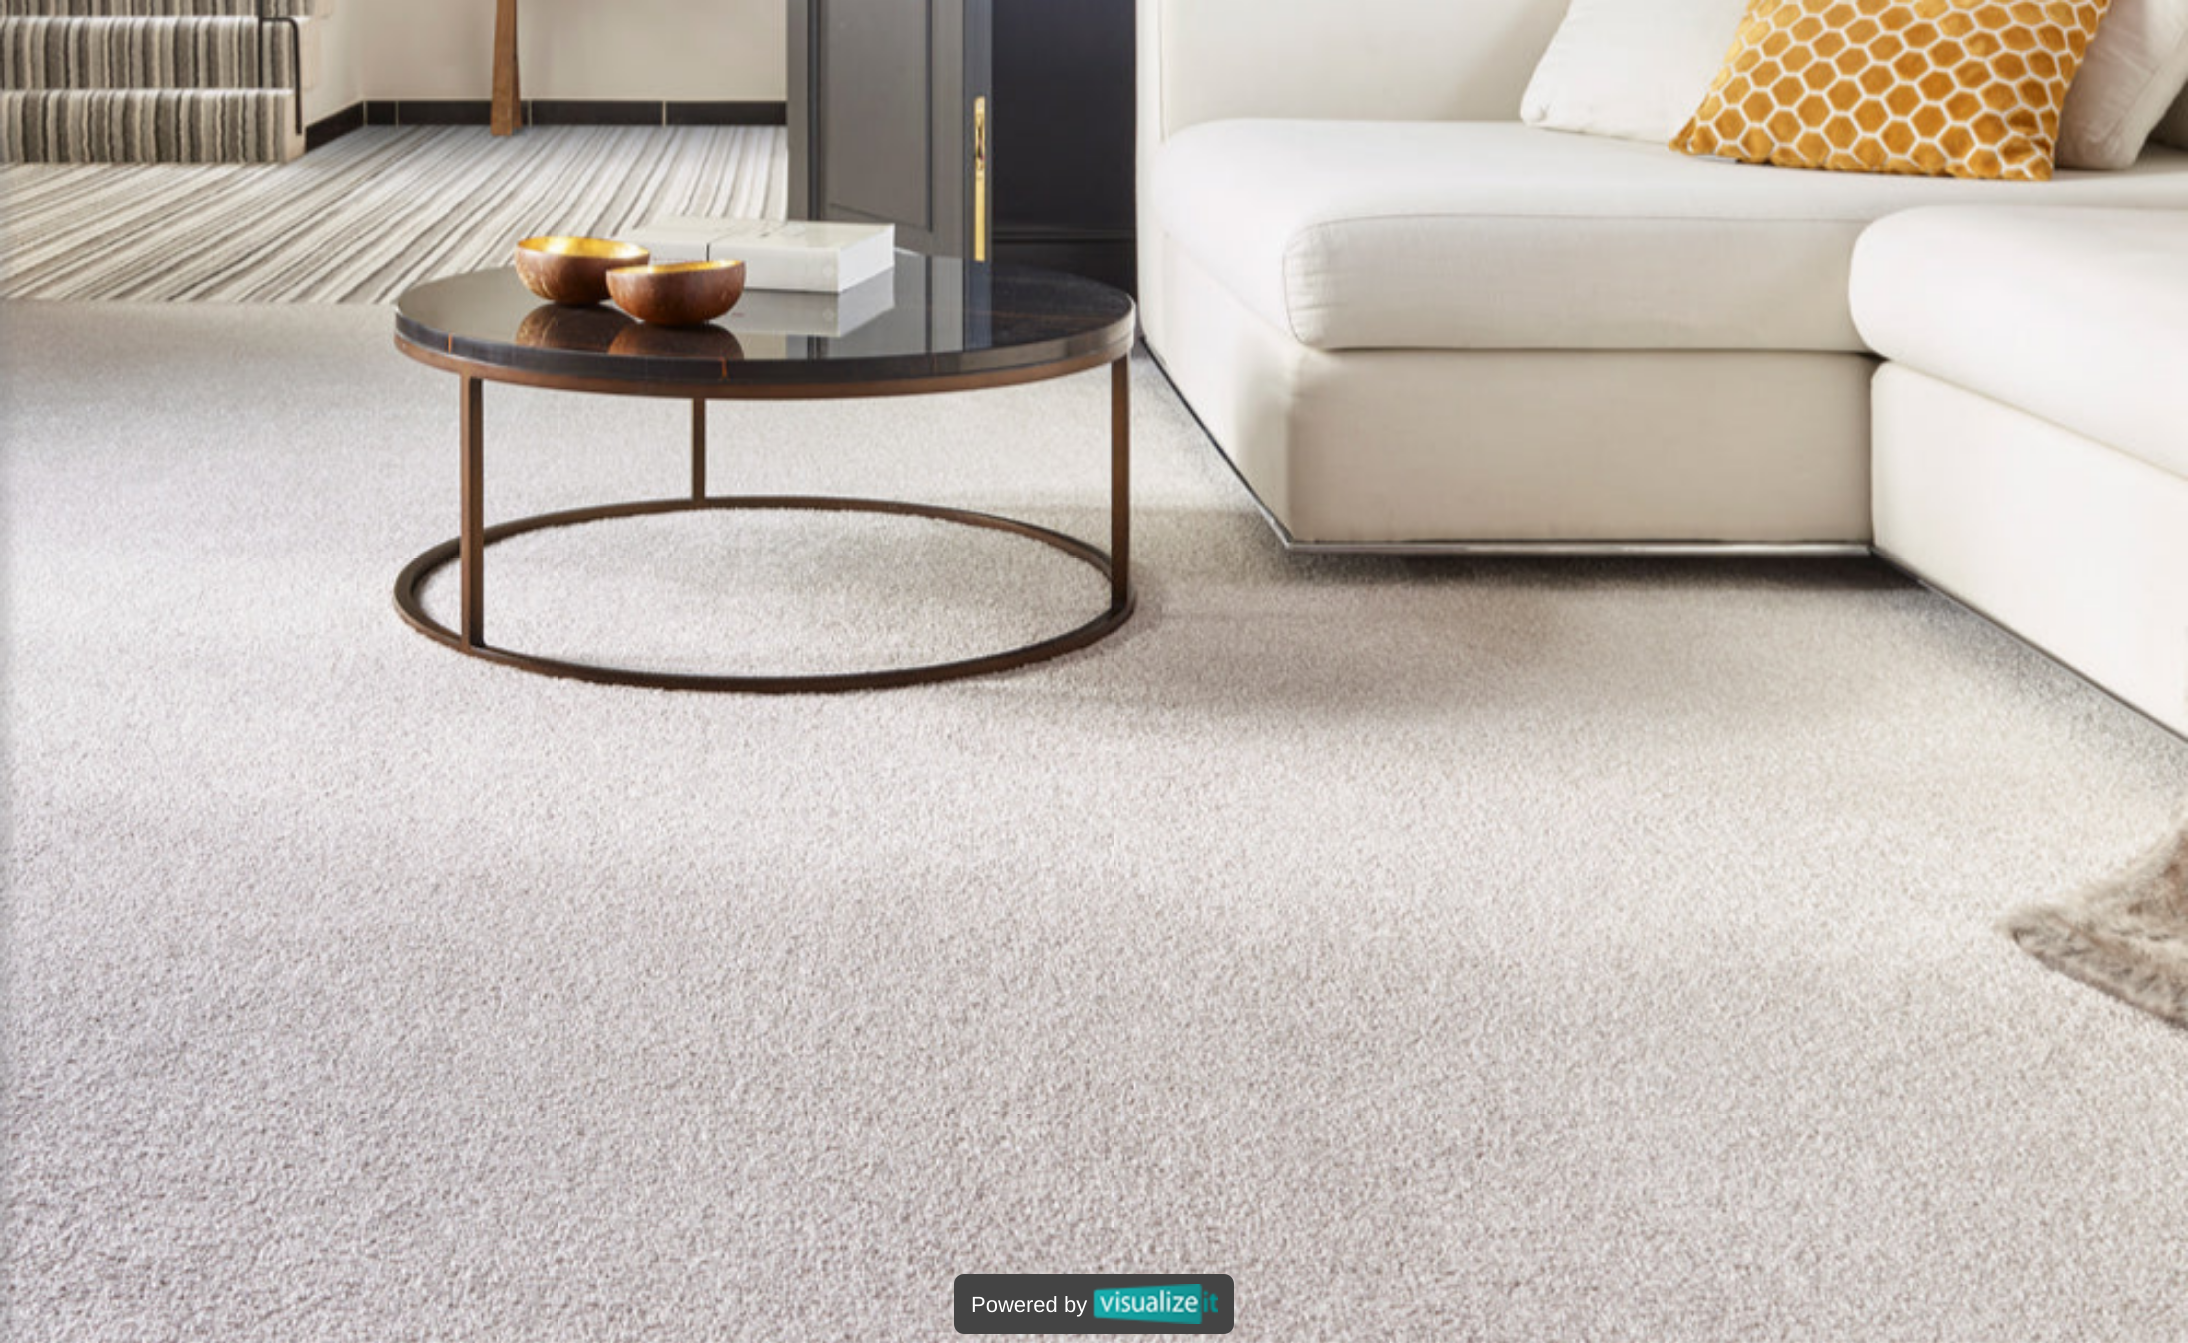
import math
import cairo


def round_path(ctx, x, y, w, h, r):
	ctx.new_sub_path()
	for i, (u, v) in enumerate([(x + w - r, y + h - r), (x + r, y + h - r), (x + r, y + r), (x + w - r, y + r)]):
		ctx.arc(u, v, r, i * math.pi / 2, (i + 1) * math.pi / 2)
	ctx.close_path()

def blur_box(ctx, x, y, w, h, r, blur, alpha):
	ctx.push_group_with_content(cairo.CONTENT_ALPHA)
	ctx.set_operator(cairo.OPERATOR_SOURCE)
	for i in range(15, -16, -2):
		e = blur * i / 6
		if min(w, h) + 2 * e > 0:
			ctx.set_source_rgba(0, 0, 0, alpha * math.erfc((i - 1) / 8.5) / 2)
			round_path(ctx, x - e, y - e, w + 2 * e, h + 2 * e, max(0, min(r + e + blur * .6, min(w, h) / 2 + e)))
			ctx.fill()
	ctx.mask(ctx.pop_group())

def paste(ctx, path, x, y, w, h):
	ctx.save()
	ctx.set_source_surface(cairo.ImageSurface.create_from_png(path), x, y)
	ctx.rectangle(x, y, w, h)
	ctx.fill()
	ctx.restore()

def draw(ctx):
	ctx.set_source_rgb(1, 1, 1)
	ctx.paint()
	paste(ctx, 'media/1.png', 0, 0, 2188, 1343)
	ctx.set_source_rgb(0.51, 0.51, 0.51)
	blur_box(ctx, -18, 116, 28, 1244, 0, 6, 0.3)
	ctx.set_source_rgb(0.267, 0.267, 0.267)
	round_path(ctx, 955, 1275, 278, 58, 9)
	ctx.fill_preserve()
	ctx.stroke()
	ctx.select_font_face('Liberation Sans')
	ctx.set_font_size(22)
	ctx.set_source_rgb(1, 1, 1)
	ctx.move_to(971, 1312)
	ctx.show_text('Powered by')
	paste(ctx, 'media/2.png', 1093, 1284, 125, 40)


surface = cairo.ImageSurface(cairo.FORMAT_RGB24, 2188, 1343)
ctx = cairo.Context(surface)
options = cairo.FontOptions()
options.set_hint_metrics(cairo.HINT_METRICS_OFF)
options.set_hint_style(cairo.HINT_STYLE_NONE)
ctx.set_font_options(options)
ctx.set_miter_limit(4)
draw(ctx)
surface.write_to_png('image.png')
